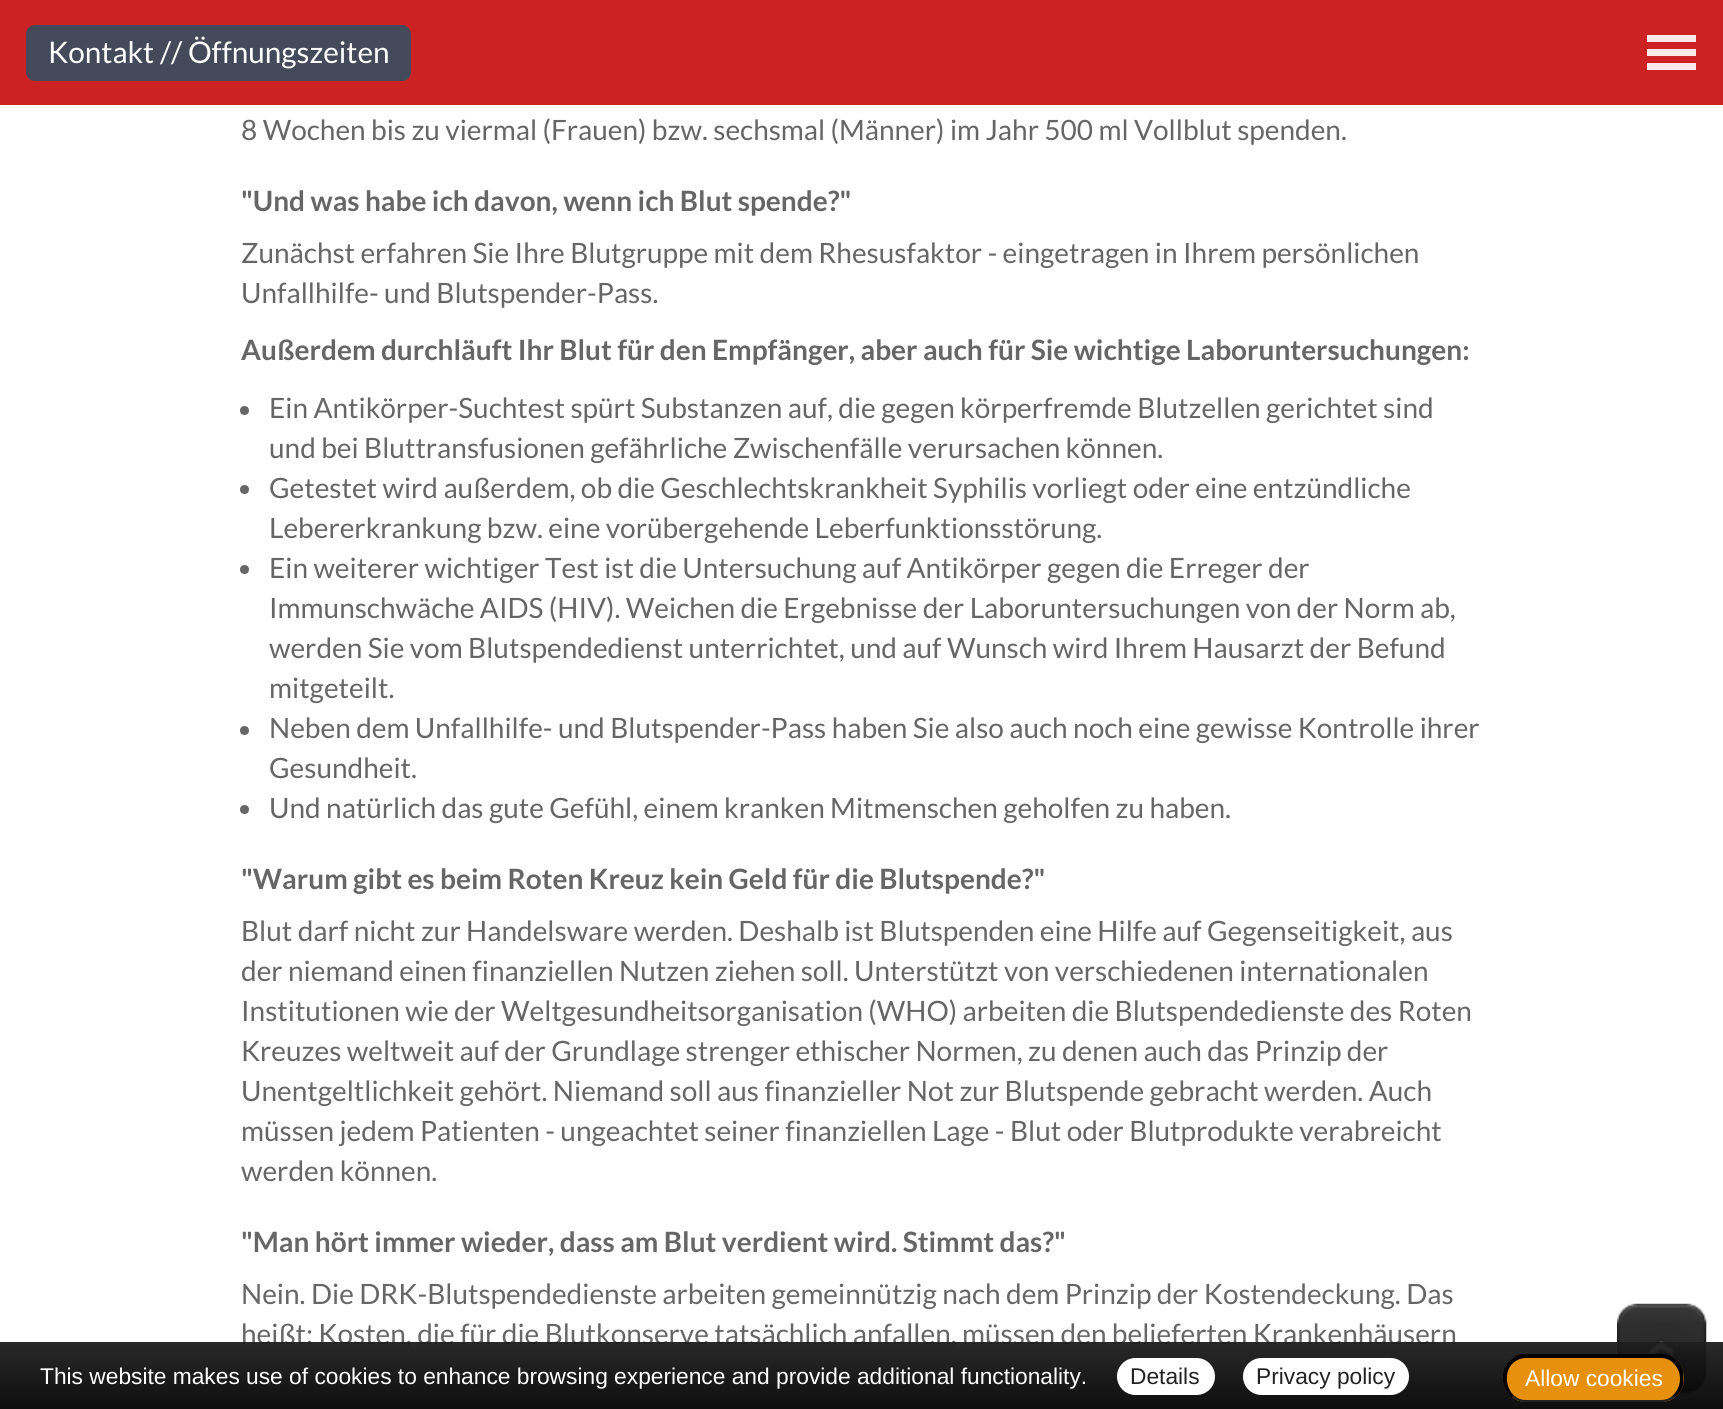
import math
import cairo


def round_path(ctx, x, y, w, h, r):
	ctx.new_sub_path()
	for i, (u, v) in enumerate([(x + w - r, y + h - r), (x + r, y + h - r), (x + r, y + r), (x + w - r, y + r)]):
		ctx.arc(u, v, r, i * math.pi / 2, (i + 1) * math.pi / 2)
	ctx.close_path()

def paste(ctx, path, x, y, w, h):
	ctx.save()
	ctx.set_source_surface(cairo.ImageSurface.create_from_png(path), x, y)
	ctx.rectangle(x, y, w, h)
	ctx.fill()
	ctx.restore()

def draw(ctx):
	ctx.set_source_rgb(1, 1, 1)
	ctx.paint()
	ctx.set_source_rgb(0.8, 0.133, 0.141)
	ctx.rectangle(0, 0, 1723, 105)
	ctx.fill()
	ctx.set_source_rgb(0.98, 0.914, 0.914)
	ctx.rectangle(1647, 35, 49, 7)
	ctx.rectangle(1647, 49, 49, 7)
	ctx.rectangle(1647, 63, 49, 7)
	ctx.fill()
	ctx.set_source_rgb(0.267, 0.29, 0.353)
	round_path(ctx, 26, 25, 385, 56, 9)
	ctx.fill()
	ctx.select_font_face('Lato')
	ctx.set_font_size(29.75)
	ctx.set_source_rgb(1, 1, 1)
	ctx.move_to(48, 63)
	ctx.show_text('Kontakt // Öffnungszeiten')
	ctx.set_font_size(28)
	ctx.set_source_rgb(0.4, 0.4, 0.4)
	ctx.move_to(241, 140)
	ctx.show_text('8 Wochen bis zu viermal (Frauen) bzw. sechsmal (Männer) im Jahr 500 ml Vollblut spenden.')
	ctx.select_font_face('Lato', cairo.FONT_SLANT_NORMAL, cairo.FONT_WEIGHT_BOLD)
	ctx.move_to(241, 211)
	ctx.show_text('"Und was habe ich davon, wenn ich Blut spende?"')
	ctx.select_font_face('Lato')
	ctx.move_to(241, 263)
	ctx.show_text('Zunächst erfahren Sie Ihre Blutgruppe mit dem Rhesusfaktor - eingetragen in Ihrem persönlichen')
	ctx.move_to(241, 303)
	ctx.show_text('Unfallhilfe- und Blutspender-Pass.')
	ctx.select_font_face('Lato', cairo.FONT_SLANT_NORMAL, cairo.FONT_WEIGHT_BOLD)
	ctx.move_to(241, 360)
	ctx.show_text('Außerdem durchläuft Ihr Blut für den Empfänger, aber auch für Sie wichtige Laboruntersuchungen:')
	ctx.new_path()
	ctx.arc(244.5, 410.5, 4.5, 0, 2 * math.pi)
	ctx.fill()
	ctx.select_font_face('Lato')
	ctx.move_to(269, 418)
	ctx.show_text('Ein Antikörper-Suchtest spürt Substanzen auf, die gegen körperfremde Blutzellen gerichtet sind')
	ctx.move_to(269, 458)
	ctx.show_text('und bei Bluttransfusionen gefährliche Zwischenfälle verursachen können.')
	ctx.new_path()
	ctx.arc(244.5, 489.5, 4.5, 0, 2 * math.pi)
	ctx.fill()
	ctx.move_to(269, 498)
	ctx.show_text('Getestet wird außerdem, ob die Geschlechtskrankheit Syphilis vorliegt oder eine entzündliche')
	ctx.move_to(269, 538)
	ctx.show_text('Lebererkrankung bzw. eine vorübergehende Leberfunktionsstörung.')
	ctx.new_path()
	ctx.arc(244.5, 569.5, 4.5, 0, 2 * math.pi)
	ctx.fill()
	for x, y, s in [
		(269, 578, 'Ein weiterer wichtiger Test ist die Untersuchung auf Antikörper gegen die Erreger der'),
		(269, 618, 'Immunschwäche AIDS (HIV). Weichen die Ergebnisse der Laboruntersuchungen von der Norm ab,'),
		(269, 658, 'werden Sie vom Blutspendedienst unterrichtet, und auf Wunsch wird Ihrem Hausarzt der Befund'),
		(269, 698, 'mitgeteilt.'),
	]:
		ctx.move_to(x, y)
		ctx.show_text(s)
	ctx.new_path()
	ctx.arc(244.5, 730.5, 4.5, 0, 2 * math.pi)
	ctx.fill()
	ctx.move_to(269, 738)
	ctx.show_text('Neben dem Unfallhilfe- und Blutspender-Pass haben Sie also auch noch eine gewisse Kontrolle ihrer')
	ctx.move_to(269, 778)
	ctx.show_text('Gesundheit.')
	ctx.new_path()
	ctx.arc(244.5, 809.5, 4.5, 0, 2 * math.pi)
	ctx.fill()
	ctx.move_to(269, 818)
	ctx.show_text('Und natürlich das gute Gefühl, einem kranken Mitmenschen geholfen zu haben.')
	ctx.select_font_face('Lato', cairo.FONT_SLANT_NORMAL, cairo.FONT_WEIGHT_BOLD)
	ctx.move_to(241, 889)
	ctx.show_text('"Warum gibt es beim Roten Kreuz kein Geld für die Blutspende?"')
	ctx.select_font_face('Lato')
	for x, y, s in [
		(241, 941, 'Blut darf nicht zur Handelsware werden. Deshalb ist Blutspenden eine Hilfe auf Gegenseitigkeit, aus'),
		(241, 981, 'der niemand einen finanziellen Nutzen ziehen soll. Unterstützt von verschiedenen internationalen'),
		(241, 1021, 'Institutionen wie der Weltgesundheitsorganisation (WHO) arbeiten die Blutspendedienste des Roten'),
		(241, 1061, 'Kreuzes weltweit auf der Grundlage strenger ethischer Normen, zu denen auch das Prinzip der'),
		(241, 1101, 'Unentgeltlichkeit gehört. Niemand soll aus finanzieller Not zur Blutspende gebracht werden. Auch'),
		(241, 1141, 'müssen jedem Patienten - ungeachtet seiner finanziellen Lage - Blut oder Blutprodukte verabreicht'),
		(241, 1181, 'werden können.'),
	]:
		ctx.move_to(x, y)
		ctx.show_text(s)
	ctx.select_font_face('Lato', cairo.FONT_SLANT_NORMAL, cairo.FONT_WEIGHT_BOLD)
	ctx.move_to(241, 1252)
	ctx.show_text('"Man hört immer wieder, dass am Blut verdient wird. Stimmt das?"')
	ctx.select_font_face('Lato')
	ctx.move_to(241, 1304)
	ctx.show_text('Nein. Die DRK-Blutspendedienste arbeiten gemeinnützig nach dem Prinzip der Kostendeckung. Das')
	ctx.move_to(241, 1344)
	ctx.show_text('heißt: Kosten, die für die Blutkonserve tatsächlich anfallen, müssen den belieferten Krankenhäusern')
	paste(ctx, 'media/1.png', 1617, 1303, 90, 91)
	gradient = cairo.LinearGradient(862, 1342, 862, 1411)
	gradient.add_color_stop_rgba(0, 0.118, 0.118, 0.118, 0.95)
	gradient.add_color_stop_rgba(1, 0, 0, 0, 0.95)
	ctx.set_source(gradient)
	ctx.rectangle(0, 1342, 1723, 67)
	ctx.fill()
	ctx.select_font_face('Liberation Sans')
	ctx.set_font_size(22.75)
	ctx.set_source_rgb(1, 1, 1)
	ctx.move_to(40, 1384)
	ctx.show_text('This website makes use of cookies to enhance browsing experience and provide additional functionality.')
	round_path(ctx, 1117, 1358, 98, 37, 18.5)
	ctx.fill()
	ctx.set_source_rgb(0.133, 0.133, 0.133)
	ctx.move_to(1130, 1384)
	ctx.show_text('Details')
	ctx.set_source_rgb(1, 1, 1)
	round_path(ctx, 1243, 1358, 166, 37, 18.5)
	ctx.fill()
	ctx.set_source_rgb(0.133, 0.133, 0.133)
	ctx.move_to(1256, 1384)
	ctx.show_text('Privacy policy')
	ctx.set_source_rgb(0.902, 0.565, 0.055)
	round_path(ctx, 1503, 1355, 181, 47, 23)
	ctx.fill()
	ctx.set_source_rgb(0, 0, 0)
	ctx.new_path()
	ctx.move_to(1526, 1358)
	ctx.curve_to(1521, 1358, 1516, 1360, 1512, 1364)
	ctx.line_to(1510, 1361)
	ctx.curve_to(1513, 1358, 1517, 1355, 1521, 1354)
	ctx.line_to(1665, 1354)
	ctx.curve_to(1670, 1355, 1674, 1358, 1677, 1361)
	ctx.line_to(1674, 1364)
	ctx.curve_to(1671, 1360, 1666, 1358, 1661, 1358)
	ctx.close_path()
	ctx.fill()
	ctx.new_path()
	ctx.move_to(1683.5, 1383.5)
	ctx.curve_to(1682.5, 1389.5, 1679, 1394, 1674.5, 1397.5)
	ctx.line_to(1672, 1396)
	ctx.curve_to(1681.5, 1388.5, 1683, 1372.5, 1674, 1364)
	ctx.line_to(1677, 1361)
	ctx.curve_to(1680, 1364, 1682.5, 1368, 1683.5, 1372.5)
	ctx.close_path()
	ctx.fill()
	ctx.set_source_rgb(0.133, 0.133, 0.133)
	ctx.new_path()
	ctx.move_to(1522, 1402)
	ctx.curve_to(1519, 1401, 1515, 1400, 1512, 1397)
	ctx.line_to(1515, 1396)
	ctx.curve_to(1518, 1399, 1522, 1400, 1526, 1400)
	ctx.line_to(1661, 1400)
	ctx.curve_to(1665, 1400, 1669, 1399, 1672, 1396)
	ctx.line_to(1675, 1397)
	ctx.curve_to(1672, 1400, 1668, 1401, 1664, 1402)
	ctx.close_path()
	ctx.fill()
	ctx.set_source_rgb(0, 0, 0)
	ctx.new_path()
	ctx.move_to(1503, 1373.5)
	ctx.curve_to(1504, 1369, 1506.5, 1364.5, 1509.5, 1361)
	ctx.line_to(1512.5, 1363.5)
	ctx.curve_to(1504, 1372, 1505.5, 1388.5, 1514.5, 1396)
	ctx.line_to(1512, 1397.5)
	ctx.curve_to(1507.5, 1394, 1504, 1388.5, 1503, 1382.5)
	ctx.close_path()
	ctx.fill()
	ctx.set_source_rgb(1, 1, 1)
	ctx.move_to(1525, 1386)
	ctx.show_text('Allow cookies')


surface = cairo.ImageSurface(cairo.FORMAT_RGB24, 1723, 1409)
ctx = cairo.Context(surface)
options = cairo.FontOptions()
options.set_hint_metrics(cairo.HINT_METRICS_OFF)
options.set_hint_style(cairo.HINT_STYLE_NONE)
ctx.set_font_options(options)
ctx.set_miter_limit(4)
draw(ctx)
surface.write_to_png('image.png')
